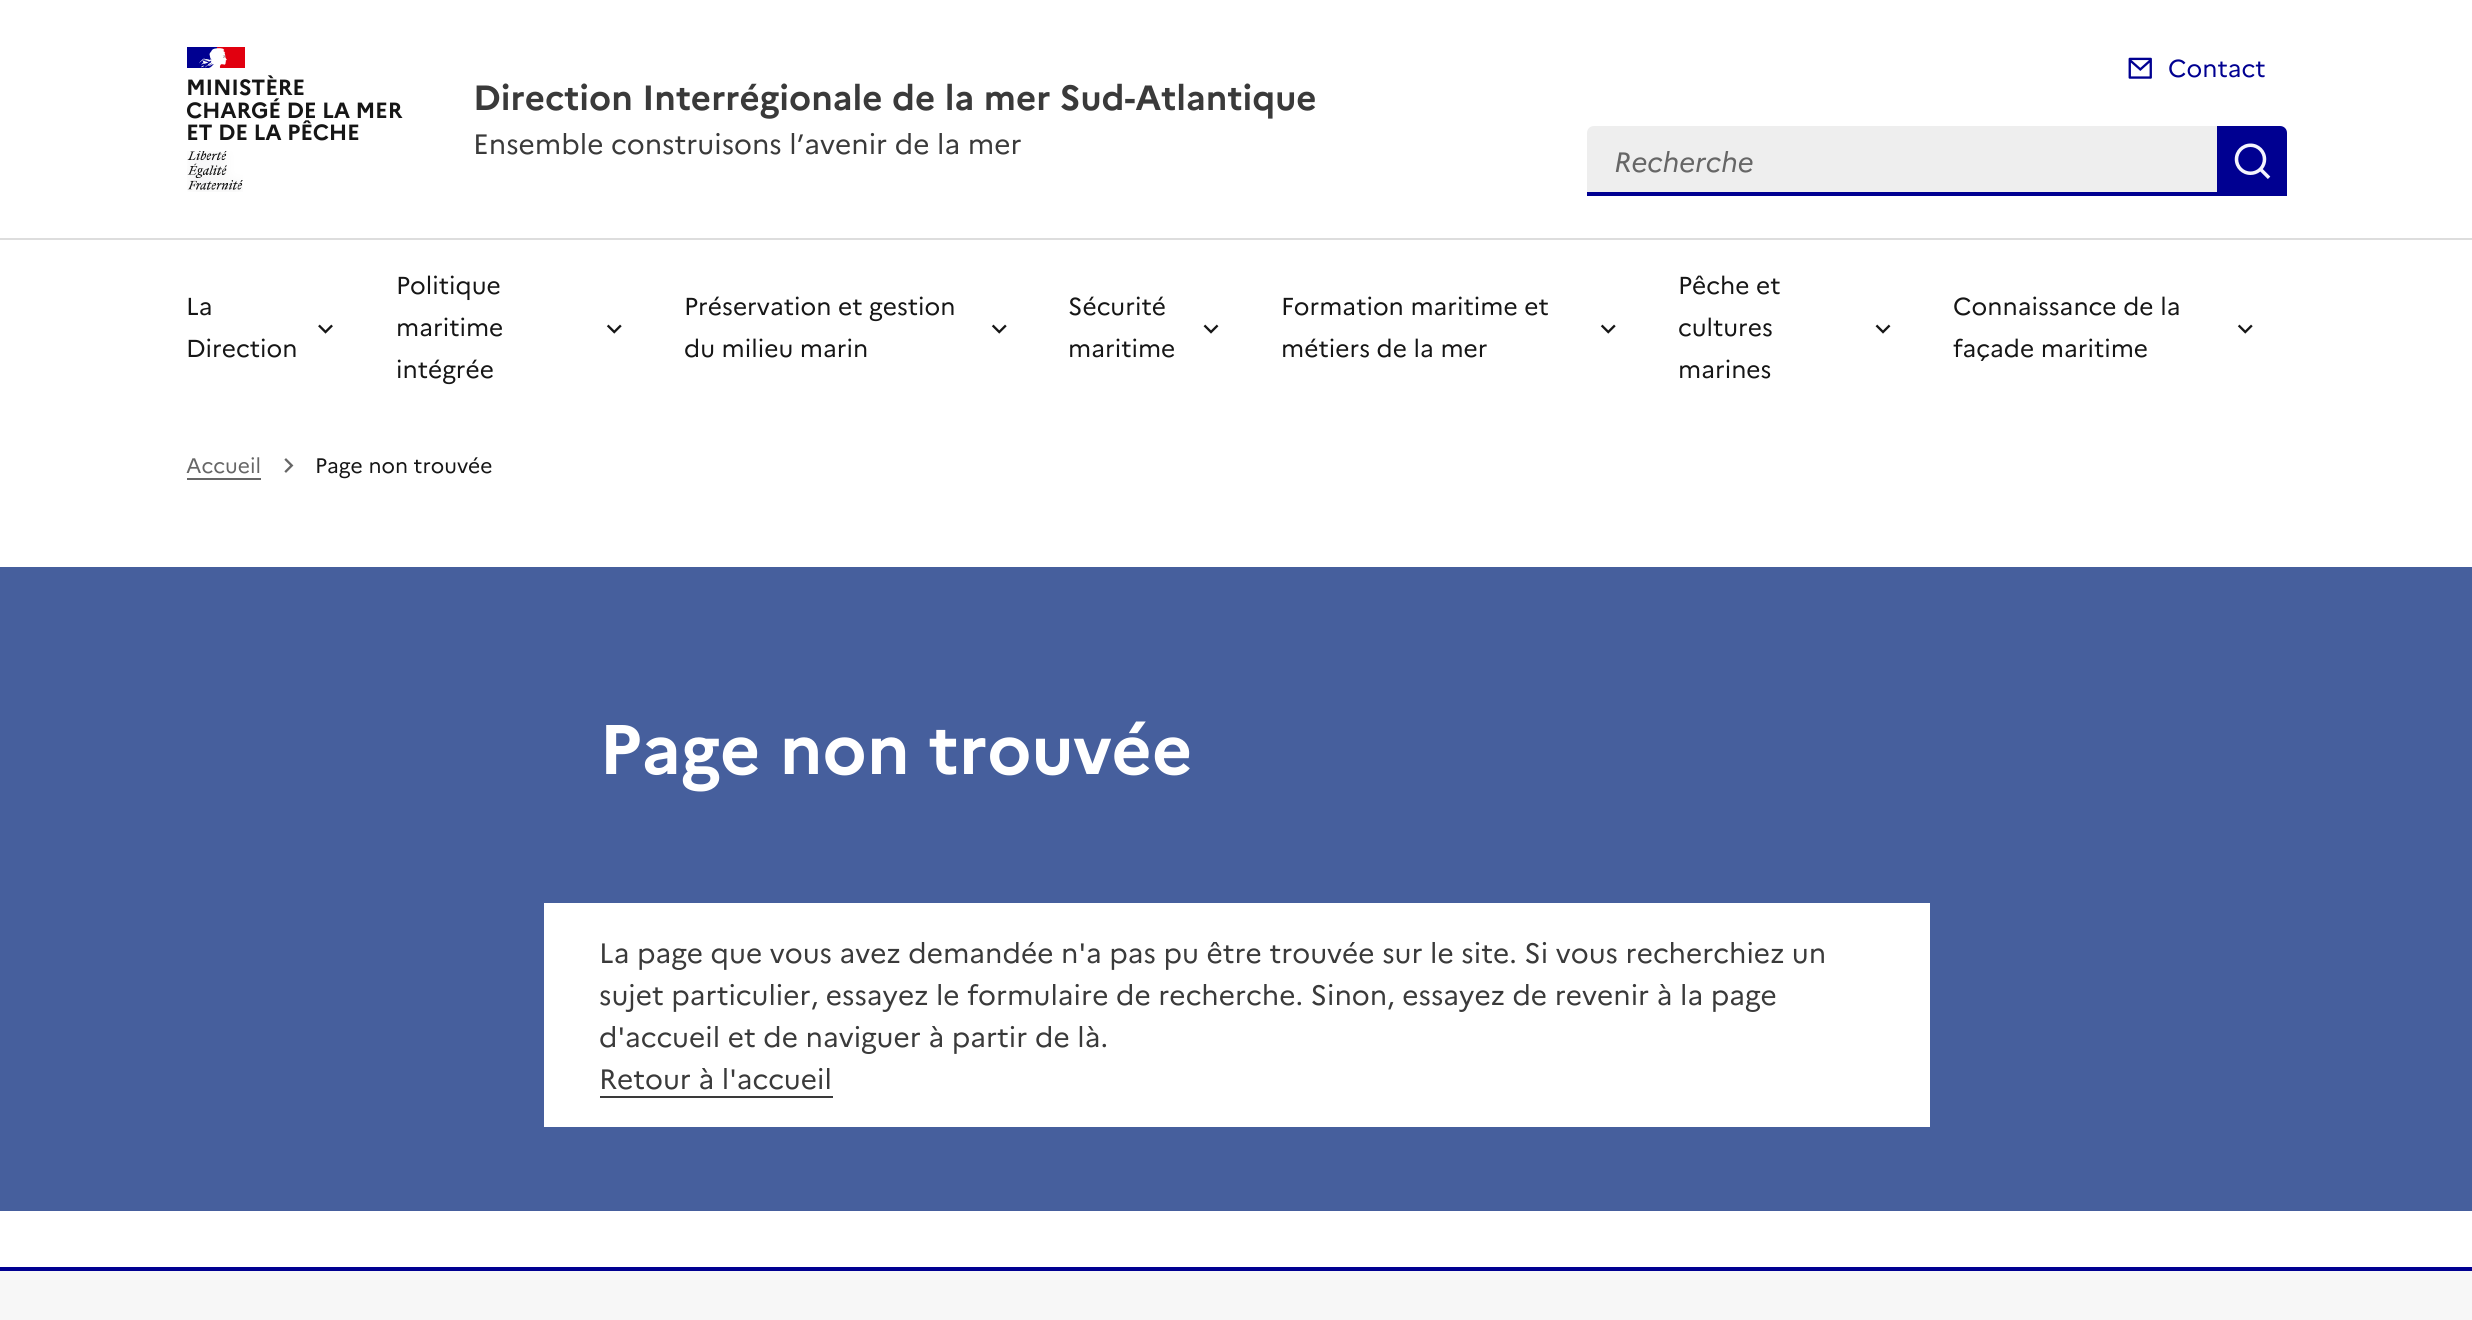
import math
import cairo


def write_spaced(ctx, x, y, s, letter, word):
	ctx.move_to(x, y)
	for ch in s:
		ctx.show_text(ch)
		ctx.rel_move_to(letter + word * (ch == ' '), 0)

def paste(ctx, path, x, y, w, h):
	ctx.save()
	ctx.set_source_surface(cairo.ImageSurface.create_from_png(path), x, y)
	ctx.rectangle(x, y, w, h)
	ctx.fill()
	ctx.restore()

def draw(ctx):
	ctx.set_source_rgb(1, 1, 1)
	ctx.paint()
	ctx.set_source_rgb(0, 0, 0.569)
	ctx.rectangle(187, 47, 30, 21)
	ctx.fill()
	ctx.set_source_rgb(0.882, 0, 0.059)
	ctx.rectangle(217, 47, 28, 21)
	ctx.fill()
	paste(ctx, 'media/1.png', 199, 48, 28, 20)
	ctx.select_font_face('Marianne', cairo.FONT_SLANT_NORMAL, cairo.FONT_WEIGHT_BOLD)
	ctx.set_font_size(22)
	ctx.set_source_rgb(0.086, 0.086, 0.086)
	for x, y, s in [
		(186, 95, 'MINISTÈRE'),
		(186, 118, 'CHARGÉ DE LA MER'),
		(186, 140, 'ET DE LA PÊCHE'),
	]:
		write_spaced(ctx, x, y, s, -0.25, 0)
	paste(ctx, 'media/2.png', 187, 151, 56, 41)
	ctx.set_font_size(35)
	ctx.set_source_rgb(0.227, 0.227, 0.227)
	ctx.move_to(473, 110)
	ctx.show_text('Direction Interrégionale de la mer Sud-Atlantique')
	ctx.select_font_face('Marianne')
	ctx.set_font_size(28)
	ctx.move_to(473, 154)
	ctx.show_text('Ensemble construisons l’avenir de la mer')
	paste(ctx, 'media/3.png', 2128, 57, 24, 22)
	ctx.set_font_size(24.5)
	ctx.set_source_rgb(0, 0, 0.569)
	ctx.move_to(2168, 77)
	ctx.show_text('Contact')
	ctx.set_source_rgb(0.933, 0.933, 0.933)
	ctx.new_path()
	ctx.move_to(1594, 126)
	ctx.line_to(2217, 126)
	ctx.line_to(2217, 196)
	ctx.line_to(1587, 196)
	ctx.line_to(1587, 133)
	ctx.curve_to(1587, 129, 1590, 126, 1594, 126)
	ctx.close_path()
	ctx.fill()
	ctx.set_source_rgb(0, 0, 0.569)
	ctx.rectangle(1587, 192, 630, 4)
	ctx.fill()
	ctx.select_font_face('Marianne', cairo.FONT_SLANT_ITALIC)
	ctx.set_font_size(28)
	ctx.set_source_rgb(0.4, 0.4, 0.4)
	ctx.move_to(1614, 172)
	ctx.show_text('Recherche')
	ctx.set_source_rgb(0, 0, 0.569)
	ctx.new_path()
	ctx.move_to(2217, 126)
	ctx.line_to(2280, 126)
	ctx.curve_to(2284, 126, 2287, 129, 2287, 133)
	ctx.line_to(2287, 196)
	ctx.line_to(2217, 196)
	ctx.close_path()
	ctx.fill()
	paste(ctx, 'media/4.png', 2234, 143, 37, 36)
	ctx.set_source_rgb(0.867, 0.867, 0.867)
	ctx.rectangle(0, 238, 2472, 2)
	ctx.fill()
	ctx.select_font_face('Marianne')
	ctx.set_font_size(24.5)
	ctx.set_source_rgb(0.086, 0.086, 0.086)
	ctx.move_to(186, 315)
	ctx.show_text('La')
	paste(ctx, 'media/5.png', 318, 324, 15, 10)
	for x, y, s in [
		(186, 357, 'Direction'),
		(396, 294, 'Politique'),
		(396, 336, 'maritime'),
	]:
		ctx.move_to(x, y)
		ctx.show_text(s)
	paste(ctx, 'media/6.png', 606, 324, 16, 10)
	ctx.move_to(396, 378)
	ctx.show_text('intégrée')
	ctx.move_to(684, 315)
	ctx.show_text('Préservation et gestion')
	paste(ctx, 'media/6.png', 991, 324, 16, 10)
	ctx.move_to(684, 357)
	ctx.show_text('du milieu marin')
	ctx.move_to(1068, 315)
	ctx.show_text('Sécurité')
	paste(ctx, 'media/7.png', 1203, 324, 16, 10)
	ctx.move_to(1068, 357)
	ctx.show_text('maritime')
	ctx.move_to(1281, 315)
	ctx.show_text('Formation maritime et')
	paste(ctx, 'media/6.png', 1600, 324, 16, 10)
	for x, y, s in [
		(1281, 357, 'métiers de la mer'),
		(1678, 294, 'Pêche et'),
		(1678, 336, 'cultures'),
	]:
		ctx.move_to(x, y)
		ctx.show_text(s)
	paste(ctx, 'media/7.png', 1875, 324, 16, 10)
	ctx.move_to(1678, 378)
	ctx.show_text('marines')
	ctx.move_to(1953, 315)
	ctx.show_text('Connaissance de la')
	paste(ctx, 'media/6.png', 2237, 324, 16, 10)
	ctx.move_to(1953, 357)
	ctx.show_text('façade maritime')
	ctx.set_font_size(21)
	ctx.set_source_rgb(0.4, 0.4, 0.4)
	ctx.move_to(186, 473)
	ctx.show_text('Accueil')
	ctx.rectangle(187, 478, 74, 2)
	ctx.fill()
	paste(ctx, 'media/8.png', 284, 458, 10, 15)
	ctx.set_source_rgb(0.086, 0.086, 0.086)
	ctx.move_to(315, 473)
	ctx.show_text('Page non trouvée')
	ctx.set_source_rgb(0.275, 0.373, 0.616)
	ctx.rectangle(0, 567, 2472, 644)
	ctx.fill()
	ctx.select_font_face('Marianne', cairo.FONT_SLANT_NORMAL, cairo.FONT_WEIGHT_BOLD)
	ctx.set_font_size(70)
	ctx.set_source_rgb(1, 1, 1)
	ctx.move_to(599, 774)
	ctx.show_text('Page non trouvée')
	ctx.rectangle(544, 903, 1386, 224)
	ctx.fill()
	ctx.select_font_face('Marianne')
	ctx.set_font_size(28)
	ctx.set_source_rgb(0.227, 0.227, 0.227)
	for x, y, s in [
		(599, 963, 'La page que vous avez demandée n\'a pas pu être trouvée sur le site. Si vous recherchiez un'),
		(599, 1005, 'sujet particulier, essayez le formulaire de recherche. Sinon, essayez de revenir à la page'),
		(599, 1047, 'd\'accueil et de naviguer à partir de là.'),
		(599, 1089, 'Retour à l\'accueil'),
	]:
		ctx.move_to(x, y)
		ctx.show_text(s)
	ctx.rectangle(600, 1096, 233, 2)
	ctx.fill()
	ctx.set_source_rgb(0, 0, 0.569)
	ctx.rectangle(0, 1267, 2472, 4)
	ctx.fill()
	ctx.set_source_rgb(0.965, 0.965, 0.965)
	ctx.rectangle(0, 1271, 2472, 49)
	ctx.fill()


surface = cairo.ImageSurface(cairo.FORMAT_RGB24, 2472, 1320)
ctx = cairo.Context(surface)
options = cairo.FontOptions()
options.set_hint_metrics(cairo.HINT_METRICS_OFF)
options.set_hint_style(cairo.HINT_STYLE_NONE)
ctx.set_font_options(options)
ctx.set_miter_limit(4)
draw(ctx)
surface.write_to_png('image.png')
